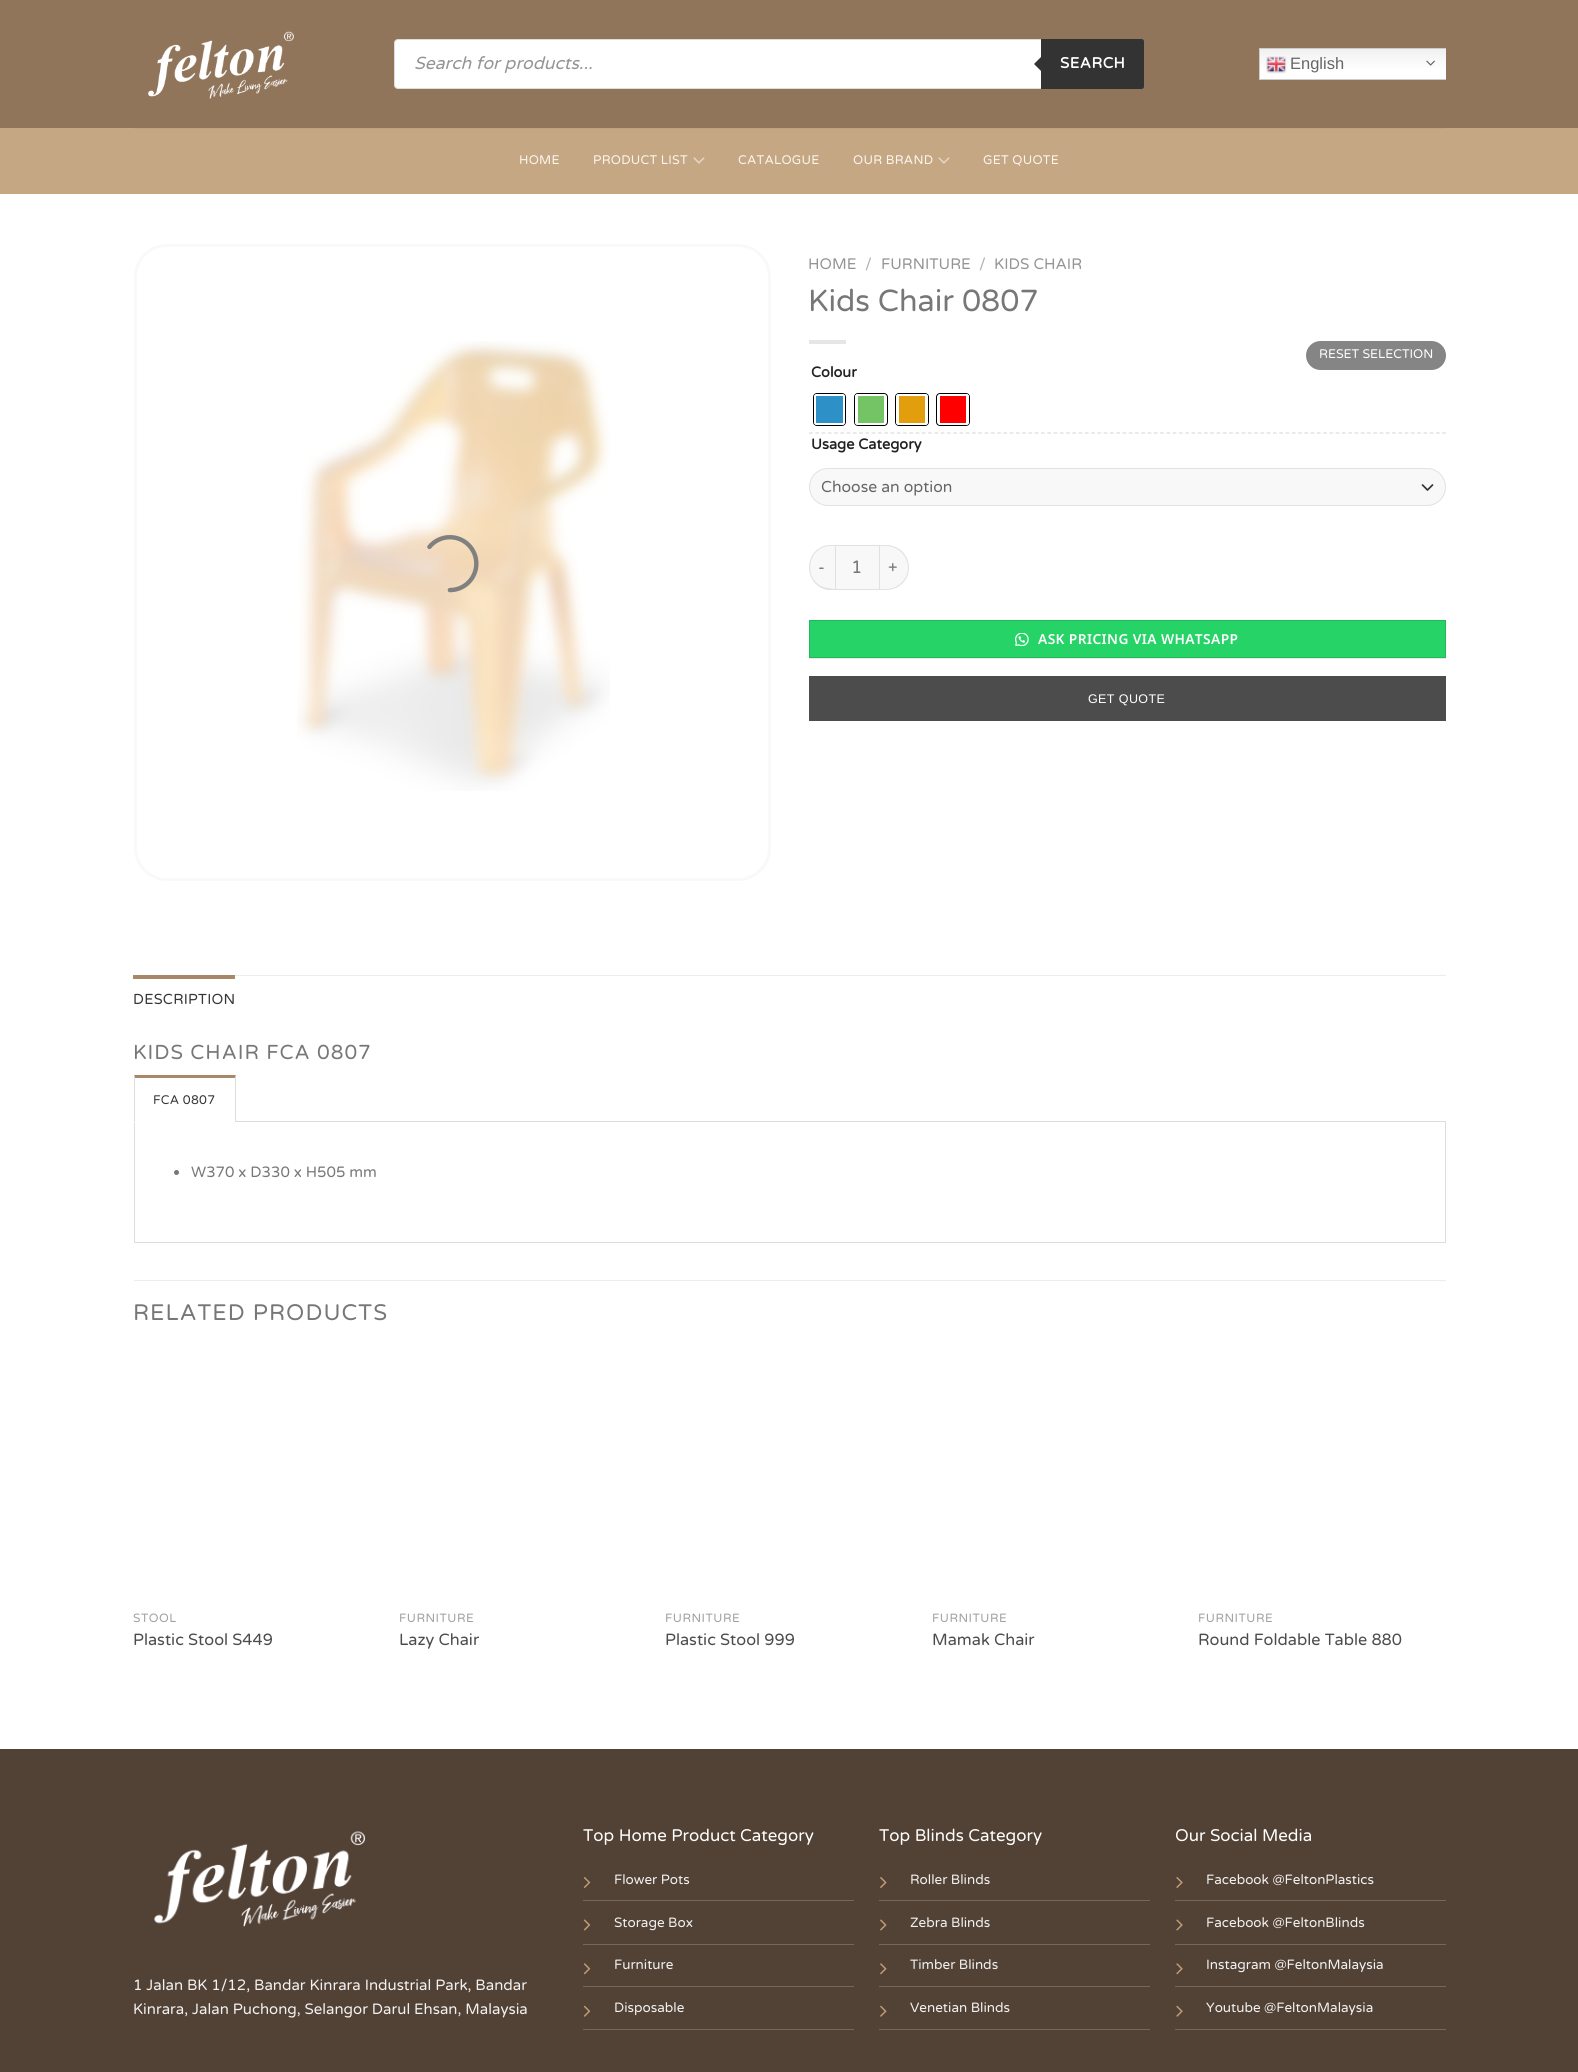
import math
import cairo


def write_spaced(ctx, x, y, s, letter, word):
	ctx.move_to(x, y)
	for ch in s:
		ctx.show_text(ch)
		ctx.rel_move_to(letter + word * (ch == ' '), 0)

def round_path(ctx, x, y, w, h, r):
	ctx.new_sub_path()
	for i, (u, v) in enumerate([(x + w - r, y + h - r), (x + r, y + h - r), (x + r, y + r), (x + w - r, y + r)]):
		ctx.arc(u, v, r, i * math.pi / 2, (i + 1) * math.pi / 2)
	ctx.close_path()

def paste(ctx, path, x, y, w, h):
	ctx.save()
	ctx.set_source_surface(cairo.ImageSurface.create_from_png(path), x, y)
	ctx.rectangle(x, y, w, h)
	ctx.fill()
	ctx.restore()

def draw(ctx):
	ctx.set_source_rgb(1, 1, 1)
	ctx.paint()
	ctx.set_source_rgb(0.569, 0.459, 0.353)
	ctx.rectangle(0, 0, 1578, 128)
	ctx.fill()
	paste(ctx, 'media/1.png', 148, 31, 146, 68)
	ctx.set_source_rgb(1, 1, 1)
	round_path(ctx, 394.5, 39.5, 749, 49, 3.5)
	ctx.fill_preserve()
	ctx.set_source_rgb(0.867, 0.867, 0.867)
	ctx.set_line_width(1)
	ctx.stroke()
	ctx.select_font_face('Varela Round', cairo.FONT_SLANT_ITALIC)
	ctx.set_font_size(17.5)
	ctx.set_source_rgb(0.58, 0.58, 0.58)
	ctx.move_to(414, 69)
	ctx.show_text('Search for products...')
	ctx.set_source_rgb(0.2, 0.2, 0.2)
	ctx.new_path()
	ctx.move_to(1041, 39)
	ctx.line_to(1141.5, 39)
	ctx.curve_to(1143, 39, 1144, 40, 1144, 41.5)
	ctx.line_to(1144, 86.5)
	ctx.curve_to(1144, 88, 1143, 89, 1141.5, 89)
	ctx.line_to(1041, 89)
	ctx.close_path()
	ctx.fill()
	ctx.new_path()
	ctx.move_to(1044, 54)
	ctx.line_to(1044, 74)
	ctx.line_to(1034, 64)
	ctx.close_path()
	ctx.fill()
	ctx.select_font_face('Varela Round', cairo.FONT_SLANT_NORMAL, cairo.FONT_WEIGHT_BOLD)
	ctx.set_font_size(15)
	ctx.set_source_rgb(1, 1, 1)
	write_spaced(ctx, 1060, 68, 'SEARCH', 0.5, 0)
	gradient = cairo.LinearGradient(1353, 47, 1353, 80)
	gradient.add_color_stop_rgba(0, 0.937, 0.937, 0.937, 1)
	gradient.add_color_stop_rgba(0.7, 1, 1, 1, 1)
	ctx.set_source(gradient)
	ctx.rectangle(1260, 49, 186, 30)
	ctx.fill()
	ctx.save()
	ctx.rectangle(1259, 48, 187, 32)
	ctx.clip()
	ctx.rectangle(1259.5, 48.5, 203, 31)
	ctx.set_source_rgb(0.8, 0.8, 0.8)
	ctx.stroke()
	ctx.restore()
	paste(ctx, 'media/2.png', 1266, 56, 21, 18)
	ctx.select_font_face('Liberation Sans')
	ctx.set_font_size(16.5)
	ctx.set_source_rgb(0.4, 0.4, 0.4)
	ctx.move_to(1290, 69)
	ctx.show_text('English')
	paste(ctx, 'media/3.png', 1426, 60, 9, 6)
	ctx.set_source_rgb(0.776, 0.655, 0.514)
	ctx.rectangle(0, 128, 1578, 66)
	ctx.fill()
	ctx.set_source_rgb(0.745, 0.635, 0.51)
	ctx.rectangle(134, 128, 1312, 1)
	ctx.fill()
	ctx.select_font_face('Varela Round')
	ctx.set_font_size(12.5)
	ctx.set_source_rgb(0.984, 0.965, 0.937)
	write_spaced(ctx, 519, 164, 'HOME', 0.25, 0)
	write_spaced(ctx, 593, 164, 'PRODUCT LIST', 0.25, 0)
	paste(ctx, 'media/4.png', 693, 157, 12, 7)
	write_spaced(ctx, 738, 164, 'CATALOGUE', 0.25, 0)
	write_spaced(ctx, 853, 164, 'OUR BRAND', 0.25, 0)
	paste(ctx, 'media/4.png', 938, 157, 12, 7)
	write_spaced(ctx, 983, 164, 'GET QUOTE', 0.25, 0)
	round_path(ctx, 135.5, 245.5, 634, 634, 31.5)
	ctx.set_source_rgb(0.976, 0.976, 0.976)
	ctx.set_line_width(3)
	ctx.stroke()
	paste(ctx, 'media/5.png', 297, 341, 313, 450)
	paste(ctx, 'media/6.png', 427, 535, 52, 58)
	ctx.set_font_size(15.25)
	ctx.set_source_rgb(0.58, 0.58, 0.58)
	ctx.move_to(808, 269)
	ctx.show_text('HOME')
	ctx.set_source_rgb(0.698, 0.698, 0.698)
	ctx.move_to(865, 269)
	ctx.show_text('/')
	ctx.set_source_rgb(0.58, 0.58, 0.58)
	ctx.move_to(881, 269)
	ctx.show_text('FURNITURE')
	ctx.set_source_rgb(0.698, 0.698, 0.698)
	ctx.move_to(979, 269)
	ctx.show_text('/')
	ctx.set_source_rgb(0.58, 0.58, 0.58)
	ctx.move_to(994, 269)
	ctx.show_text('KIDS CHAIR')
	ctx.set_font_size(30.5)
	ctx.set_source_rgb(0.467, 0.467, 0.467)
	ctx.move_to(808, 311)
	ctx.show_text('Kids Chair 0807')
	ctx.set_source_rgb(0.902, 0.902, 0.902)
	ctx.rectangle(809, 340, 37, 4)
	ctx.fill()
	ctx.new_path()
	ctx.move_to(809, 433)
	ctx.line_to(1446, 433)
	ctx.set_source_rgb(0.867, 0.867, 0.867)
	ctx.set_line_width(1.2)
	ctx.set_dash([3.75, 2.52])
	ctx.stroke()
	ctx.set_source_rgb(0.522, 0.522, 0.522)
	round_path(ctx, 1306, 341, 140, 29, 14.5)
	ctx.fill()
	ctx.set_font_size(12.5)
	ctx.set_source_rgb(1, 1, 1)
	ctx.move_to(1319, 358)
	ctx.show_text('RESET SELECTION')
	ctx.set_source_rgb(0.969, 0.969, 0.969)
	round_path(ctx, 809, 468, 637, 38, 19)
	ctx.fill()
	ctx.new_path()
	ctx.move_to(1422.5, 485)
	ctx.line_to(1427.5, 490)
	ctx.line_to(1432.5, 485)
	ctx.set_source_rgb(0.2, 0.2, 0.2)
	ctx.set_line_width(1.7)
	ctx.set_line_cap(cairo.LINE_CAP_ROUND)
	ctx.set_line_join(cairo.LINE_JOIN_ROUND)
	ctx.set_dash([])
	ctx.stroke()
	round_path(ctx, 809.5, 468.5, 636, 37, 18.5)
	ctx.set_source_rgba(0, 0, 0, 0.09)
	ctx.set_line_width(1)
	ctx.set_line_cap(cairo.LINE_CAP_BUTT)
	ctx.set_line_join(cairo.LINE_JOIN_MITER)
	ctx.stroke()
	ctx.set_font_size(15.75)
	ctx.set_source_rgb(0.4, 0.4, 0.4)
	ctx.move_to(821, 492)
	ctx.show_text('Choose an option')
	ctx.select_font_face('Varela Round', cairo.FONT_SLANT_NORMAL, cairo.FONT_WEIGHT_BOLD)
	ctx.set_font_size(14.5)
	ctx.set_source_rgb(0.133, 0.133, 0.133)
	ctx.move_to(811, 449)
	ctx.show_text('Usage Category')
	ctx.move_to(811, 377)
	ctx.show_text('Colour')
	round_path(ctx, 813.5, 393.5, 32, 32, 3.5)
	ctx.set_source_rgb(0, 0, 0)
	ctx.stroke()
	ctx.set_source_rgb(1, 1, 1)
	round_path(ctx, 814, 394, 31, 31, 2.5)
	ctx.fill()
	ctx.set_source_rgb(0.176, 0.565, 0.776)
	ctx.rectangle(816, 396, 27, 27)
	ctx.fill()
	round_path(ctx, 854.5, 393.5, 33, 32, 3.5)
	ctx.set_source_rgb(0, 0, 0)
	ctx.stroke()
	ctx.set_source_rgb(1, 1, 1)
	round_path(ctx, 855, 394, 31, 31, 2.5)
	ctx.fill()
	ctx.set_source_rgb(0.455, 0.765, 0.396)
	ctx.rectangle(858, 396, 26, 27)
	ctx.fill()
	round_path(ctx, 895.5, 393.5, 33, 32, 3.5)
	ctx.set_source_rgb(0, 0, 0)
	ctx.stroke()
	ctx.set_source_rgb(1, 1, 1)
	round_path(ctx, 896, 394, 32, 31, 2.5)
	ctx.fill()
	ctx.set_source_rgb(0.886, 0.62, 0.051)
	ctx.rectangle(899, 396, 26, 27)
	ctx.fill()
	round_path(ctx, 936.5, 393.5, 33, 32, 3.5)
	ctx.set_source_rgb(0, 0, 0)
	ctx.stroke()
	ctx.set_source_rgb(1, 1, 1)
	round_path(ctx, 938, 394, 31, 31, 2.5)
	ctx.fill()
	ctx.set_source_rgb(1, 0, 0)
	ctx.rectangle(940, 396, 26, 27)
	ctx.fill()
	ctx.set_source_rgb(0.969, 0.969, 0.969)
	ctx.new_path()
	ctx.move_to(831.5, 545)
	ctx.line_to(835, 545)
	ctx.line_to(835, 590)
	ctx.line_to(831.5, 590)
	ctx.curve_to(819, 590, 809, 580, 809, 567.5)
	ctx.curve_to(809, 555, 819, 545, 831.5, 545)
	ctx.close_path()
	ctx.fill()
	ctx.set_source_rgba(0, 0, 0, 0.09)
	ctx.set_fill_rule(cairo.FILL_RULE_EVEN_ODD)
	ctx.new_path()
	ctx.move_to(831, 545)
	ctx.line_to(835, 545)
	ctx.line_to(835, 590)
	ctx.line_to(827, 590)
	ctx.curve_to(801, 584, 804, 545, 831, 545)
	ctx.close_path()
	ctx.move_to(831, 546)
	ctx.line_to(835, 546)
	ctx.line_to(835, 589)
	ctx.line_to(827, 588)
	ctx.curve_to(802, 583, 806, 546, 831, 546)
	ctx.close_path()
	ctx.fill()
	ctx.select_font_face('Varela Round')
	ctx.set_font_size(17)
	ctx.set_source_rgb(0.467, 0.467, 0.467)
	write_spaced(ctx, 818, 573, '-', 1, 0)
	ctx.set_source_rgb(0.969, 0.969, 0.969)
	ctx.rectangle(835.5, 545.5, 44, 44)
	ctx.fill_preserve()
	ctx.set_source_rgb(0.882, 0.882, 0.882)
	ctx.stroke()
	ctx.set_font_size(18)
	ctx.set_source_rgb(0.467, 0.467, 0.467)
	ctx.move_to(851, 573)
	ctx.show_text('1')
	ctx.set_source_rgb(0.969, 0.969, 0.969)
	ctx.new_path()
	ctx.move_to(880, 545)
	ctx.line_to(886.5, 545)
	ctx.curve_to(899, 545, 909, 555, 909, 567.5)
	ctx.curve_to(909, 580, 899, 590, 886.5, 590)
	ctx.line_to(880, 590)
	ctx.close_path()
	ctx.fill()
	ctx.set_source_rgba(0, 0, 0, 0.09)
	ctx.new_path()
	ctx.move_to(880, 545)
	ctx.line_to(886, 545)
	ctx.curve_to(899, 545, 909, 555, 909, 568)
	ctx.curve_to(909, 580, 899, 590, 886, 590)
	ctx.line_to(880, 590)
	ctx.close_path()
	ctx.move_to(880, 546)
	ctx.line_to(886, 546)
	ctx.curve_to(898, 546, 908, 556, 908, 568)
	ctx.curve_to(908, 579, 898, 589, 886, 589)
	ctx.line_to(880, 589)
	ctx.close_path()
	ctx.fill()
	ctx.set_font_size(17)
	ctx.set_source_rgb(0.467, 0.467, 0.467)
	write_spaced(ctx, 888, 573, '+', 1, 0)
	ctx.set_source_rgb(0.91, 0.914, 0.914)
	ctx.rectangle(809, 658, 637, 1)
	ctx.fill()
	ctx.set_source_rgb(0.145, 0.827, 0.4)
	ctx.rectangle(809.5, 620.5, 636, 37)
	ctx.fill_preserve()
	ctx.set_source_rgb(0.141, 0.722, 0.361)
	ctx.stroke()
	paste(ctx, 'media/7.png', 1015, 633, 14, 13)
	ctx.select_font_face('Noto Sans SemiBold')
	ctx.set_font_size(13.75)
	ctx.set_source_rgb(1, 1, 1)
	write_spaced(ctx, 1038, 644, 'ASK PRICING VIA WHATSAPP', 0.4, 0)
	ctx.set_source_rgb(0.298, 0.298, 0.298)
	ctx.rectangle(809, 676, 637, 45)
	ctx.fill()
	ctx.select_font_face('Liberation Sans')
	ctx.set_font_size(12.5)
	ctx.set_source_rgb(1, 1, 1)
	write_spaced(ctx, 1088, 703, 'GET QUOTE', 0.4, 0)
	ctx.set_source_rgb(0.925, 0.925, 0.925)
	ctx.rectangle(235, 975, 1211, 1)
	ctx.fill()
	ctx.set_source_rgb(0.659, 0.533, 0.408)
	ctx.rectangle(133, 975, 102, 4)
	ctx.fill()
	ctx.select_font_face('Varela Round')
	ctx.set_font_size(14.5)
	ctx.set_source_rgb(0.212, 0.212, 0.212)
	write_spaced(ctx, 133, 1004, 'DESCRIPTION', 0.25, 0)
	ctx.set_font_size(20.25)
	ctx.set_source_rgb(0.467, 0.467, 0.467)
	write_spaced(ctx, 133, 1059, 'KIDS CHAIR FCA 0807', 1, 0)
	ctx.rectangle(134.5, 1121.5, 1311, 121)
	ctx.set_source_rgb(0.867, 0.867, 0.867)
	ctx.stroke()
	ctx.set_source_rgb(1, 1, 1)
	ctx.rectangle(134, 1121, 102, 2)
	ctx.fill()
	ctx.set_source_rgb(0.659, 0.533, 0.408)
	ctx.set_fill_rule(cairo.FILL_RULE_WINDING)
	ctx.new_path()
	ctx.move_to(134, 1075)
	ctx.line_to(236, 1075)
	ctx.line_to(235, 1078)
	ctx.line_to(135, 1078)
	ctx.close_path()
	ctx.fill()
	ctx.set_source_rgb(0.867, 0.867, 0.867)
	ctx.new_path()
	ctx.move_to(236, 1075)
	ctx.line_to(236, 1122)
	ctx.line_to(235, 1122)
	ctx.line_to(235, 1078)
	ctx.close_path()
	ctx.fill()
	ctx.new_path()
	ctx.move_to(134, 1122)
	ctx.line_to(134, 1075)
	ctx.line_to(135, 1078)
	ctx.line_to(135, 1122)
	ctx.close_path()
	ctx.fill()
	ctx.set_font_size(12.5)
	ctx.set_source_rgb(0.212, 0.212, 0.212)
	write_spaced(ctx, 153, 1104, 'FCA 0807', 0.25, 0)
	ctx.set_source_rgb(0.467, 0.467, 0.467)
	ctx.new_path()
	ctx.arc(176.5, 1172.5, 2.5, 0, 2 * math.pi)
	ctx.fill()
	ctx.set_font_size(15)
	ctx.move_to(191, 1177)
	ctx.show_text('W370 x D330 x H505 mm')
	ctx.set_source_rgb(0.925, 0.925, 0.925)
	ctx.rectangle(134, 1280, 1312, 1)
	ctx.fill()
	ctx.set_font_size(22.5)
	ctx.set_source_rgb(0.467, 0.467, 0.467)
	write_spaced(ctx, 133, 1320, 'RELATED PRODUCTS', 1.1, 0)
	ctx.set_font_size(12)
	ctx.set_source_rgb(0.627, 0.627, 0.627)
	write_spaced(ctx, 133, 1622, 'STOOL', 0.5, 0)
	ctx.set_font_size(16.25)
	ctx.set_source_rgb(0.298, 0.298, 0.298)
	ctx.move_to(133, 1645)
	ctx.show_text('Plastic Stool S449')
	ctx.set_font_size(12)
	ctx.set_source_rgb(0.627, 0.627, 0.627)
	write_spaced(ctx, 399, 1622, 'FURNITURE', 0.5, 0)
	ctx.set_font_size(16.25)
	ctx.set_source_rgb(0.298, 0.298, 0.298)
	ctx.move_to(399, 1645)
	ctx.show_text('Lazy Chair')
	ctx.set_font_size(12)
	ctx.set_source_rgb(0.627, 0.627, 0.627)
	write_spaced(ctx, 665, 1622, 'FURNITURE', 0.5, 0)
	ctx.set_font_size(16.25)
	ctx.set_source_rgb(0.298, 0.298, 0.298)
	ctx.move_to(665, 1645)
	ctx.show_text('Plastic Stool 999')
	ctx.set_font_size(12)
	ctx.set_source_rgb(0.627, 0.627, 0.627)
	write_spaced(ctx, 932, 1622, 'FURNITURE', 0.5, 0)
	ctx.set_font_size(16.25)
	ctx.set_source_rgb(0.298, 0.298, 0.298)
	ctx.move_to(932, 1645)
	ctx.show_text('Mamak Chair')
	ctx.set_font_size(12)
	ctx.set_source_rgb(0.627, 0.627, 0.627)
	write_spaced(ctx, 1198, 1622, 'FURNITURE', 0.5, 0)
	ctx.set_font_size(16.25)
	ctx.set_source_rgb(0.298, 0.298, 0.298)
	ctx.move_to(1198, 1645)
	ctx.show_text('Round Foldable Table 880')
	ctx.set_source_rgb(0.322, 0.255, 0.208)
	ctx.rectangle(0, 1749, 1578, 323)
	ctx.fill()
	paste(ctx, 'media/8.png', 154, 1831, 212, 96)
	ctx.set_font_size(15)
	ctx.set_source_rgb(0.945, 0.945, 0.945)
	ctx.move_to(133, 1990)
	ctx.show_text('1 Jalan BK 1/12, Bandar Kinrara Industrial Park, Bandar')
	ctx.move_to(133, 2014)
	ctx.show_text('Kinrara, Jalan Puchong, Selangor Darul Ehsan, Malaysia')
	ctx.set_font_size(16.9)
	ctx.set_source_rgb(1, 1, 1)
	ctx.move_to(583, 1841)
	ctx.show_text('Top Home Product Category')
	ctx.set_source_rgb(0.459, 0.404, 0.365)
	ctx.rectangle(583, 1900, 271, 1)
	ctx.fill()
	paste(ctx, 'media/9.png', 583, 1877, 8, 11)
	ctx.set_font_size(13.5)
	ctx.set_source_rgb(0.945, 0.945, 0.945)
	ctx.move_to(614, 1884)
	ctx.show_text('Flower Pots')
	ctx.set_source_rgb(0.459, 0.404, 0.365)
	ctx.rectangle(583, 1944, 271, 1)
	ctx.fill()
	paste(ctx, 'media/10.png', 583, 1919, 8, 12)
	ctx.set_source_rgb(0.945, 0.945, 0.945)
	ctx.move_to(614, 1927)
	ctx.show_text('Storage Box')
	ctx.set_source_rgb(0.459, 0.404, 0.365)
	ctx.rectangle(583, 1986, 271, 1)
	ctx.fill()
	paste(ctx, 'media/11.png', 583, 1963, 8, 12)
	ctx.set_source_rgb(0.945, 0.945, 0.945)
	ctx.move_to(614, 1969)
	ctx.show_text('Furniture')
	ctx.set_source_rgb(0.459, 0.404, 0.365)
	ctx.rectangle(583, 2029, 271, 1)
	ctx.fill()
	paste(ctx, 'media/12.png', 583, 2005, 8, 12)
	ctx.set_source_rgb(0.945, 0.945, 0.945)
	ctx.move_to(614, 2012)
	ctx.show_text('Disposable')
	ctx.set_font_size(16.9)
	ctx.set_source_rgb(1, 1, 1)
	ctx.move_to(879, 1841)
	ctx.show_text('Top Blinds Category')
	ctx.set_source_rgb(0.459, 0.404, 0.365)
	ctx.rectangle(879, 1900, 271, 1)
	ctx.fill()
	paste(ctx, 'media/13.png', 880, 1877, 7, 11)
	ctx.set_font_size(13.5)
	ctx.set_source_rgb(0.945, 0.945, 0.945)
	ctx.move_to(910, 1884)
	ctx.show_text('Roller Blinds')
	ctx.set_source_rgb(0.459, 0.404, 0.365)
	ctx.rectangle(879, 1944, 271, 1)
	ctx.fill()
	paste(ctx, 'media/14.png', 880, 1919, 7, 12)
	ctx.set_source_rgb(0.945, 0.945, 0.945)
	ctx.move_to(910, 1927)
	ctx.show_text('Zebra Blinds')
	ctx.set_source_rgb(0.459, 0.404, 0.365)
	ctx.rectangle(879, 1986, 271, 1)
	ctx.fill()
	paste(ctx, 'media/15.png', 880, 1963, 7, 12)
	ctx.set_source_rgb(0.945, 0.945, 0.945)
	ctx.move_to(910, 1969)
	ctx.show_text('Timber Blinds')
	ctx.set_source_rgb(0.459, 0.404, 0.365)
	ctx.rectangle(879, 2029, 271, 1)
	ctx.fill()
	paste(ctx, 'media/16.png', 880, 2005, 7, 12)
	ctx.set_source_rgb(0.945, 0.945, 0.945)
	ctx.move_to(910, 2012)
	ctx.show_text('Venetian Blinds')
	ctx.set_font_size(16.9)
	ctx.set_source_rgb(1, 1, 1)
	ctx.move_to(1175, 1841)
	ctx.show_text('Our Social Media')
	ctx.set_source_rgb(0.459, 0.404, 0.365)
	ctx.rectangle(1175, 1900, 271, 1)
	ctx.fill()
	paste(ctx, 'media/17.png', 1176, 1877, 7, 11)
	ctx.set_font_size(13.5)
	ctx.set_source_rgb(0.945, 0.945, 0.945)
	ctx.move_to(1206, 1884)
	ctx.show_text('Facebook @FeltonPlastics')
	ctx.set_source_rgb(0.459, 0.404, 0.365)
	ctx.rectangle(1175, 1944, 271, 1)
	ctx.fill()
	paste(ctx, 'media/18.png', 1176, 1919, 7, 12)
	ctx.set_source_rgb(0.945, 0.945, 0.945)
	ctx.move_to(1206, 1927)
	ctx.show_text('Facebook @FeltonBlinds')
	ctx.set_source_rgb(0.459, 0.404, 0.365)
	ctx.rectangle(1175, 1986, 271, 1)
	ctx.fill()
	paste(ctx, 'media/19.png', 1176, 1963, 7, 12)
	ctx.set_source_rgb(0.945, 0.945, 0.945)
	ctx.move_to(1206, 1969)
	ctx.show_text('Instagram @FeltonMalaysia')
	ctx.set_source_rgb(0.459, 0.404, 0.365)
	ctx.rectangle(1175, 2029, 271, 1)
	ctx.fill()
	paste(ctx, 'media/20.png', 1176, 2005, 7, 12)
	ctx.set_source_rgb(0.945, 0.945, 0.945)
	ctx.move_to(1206, 2012)
	ctx.show_text('Youtube @FeltonMalaysia')


surface = cairo.ImageSurface(cairo.FORMAT_RGB24, 1578, 2072)
ctx = cairo.Context(surface)
options = cairo.FontOptions()
options.set_hint_metrics(cairo.HINT_METRICS_OFF)
options.set_hint_style(cairo.HINT_STYLE_NONE)
ctx.set_font_options(options)
ctx.set_miter_limit(4)
draw(ctx)
surface.write_to_png('image.png')
